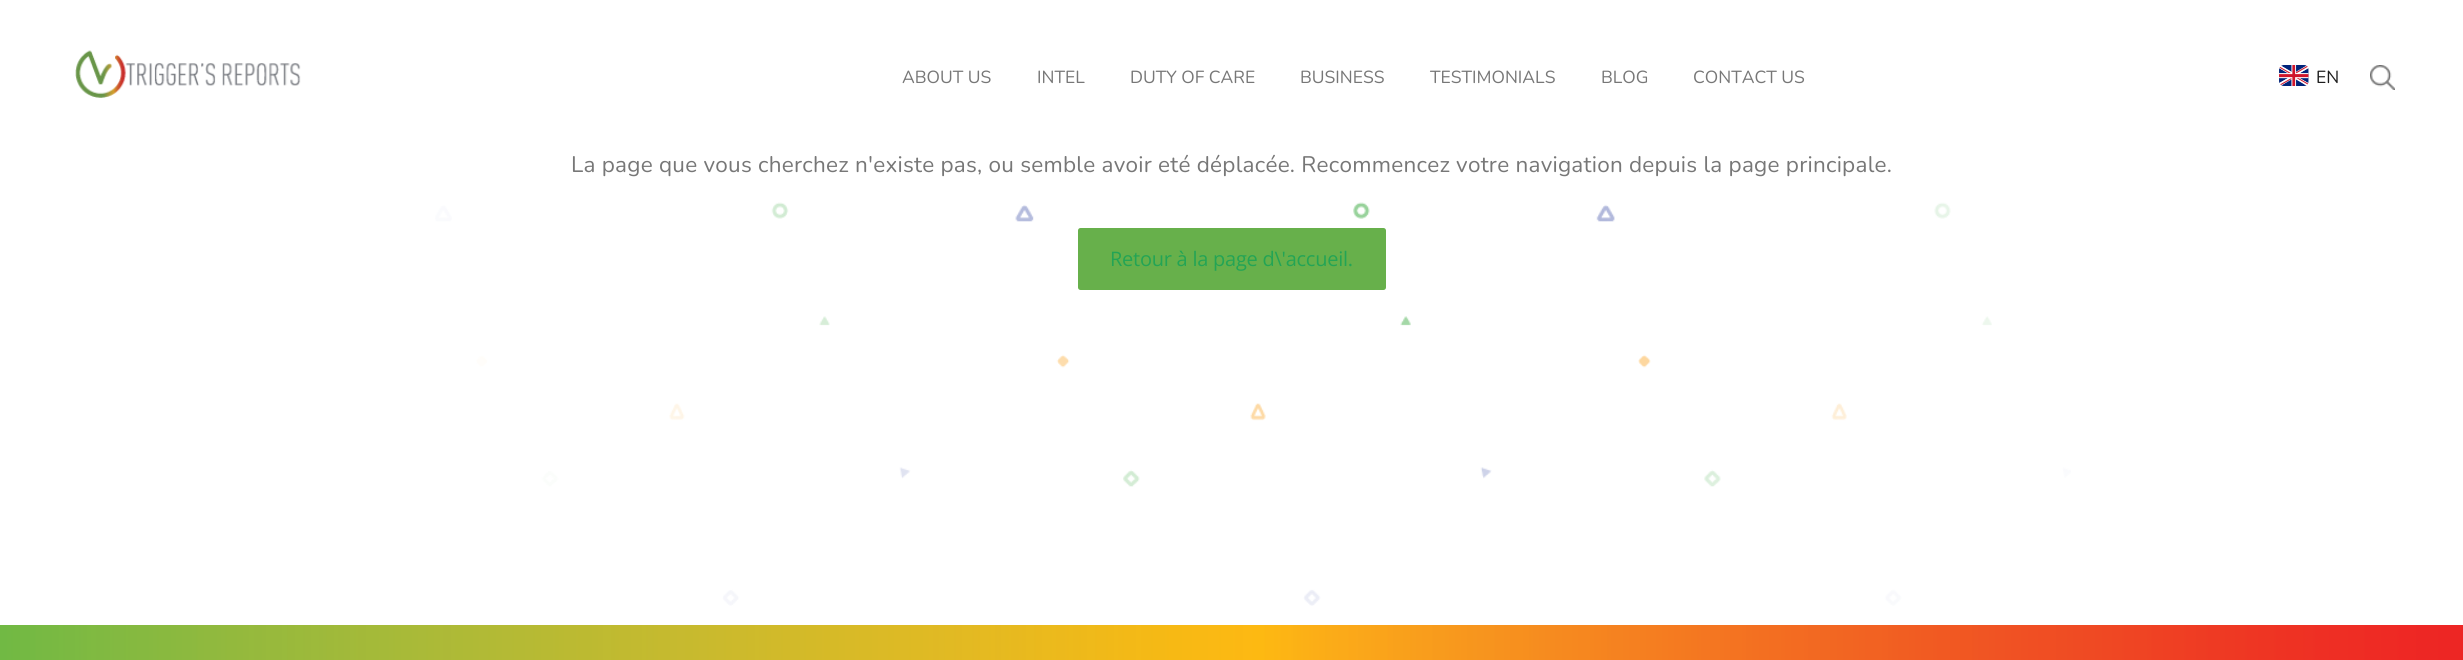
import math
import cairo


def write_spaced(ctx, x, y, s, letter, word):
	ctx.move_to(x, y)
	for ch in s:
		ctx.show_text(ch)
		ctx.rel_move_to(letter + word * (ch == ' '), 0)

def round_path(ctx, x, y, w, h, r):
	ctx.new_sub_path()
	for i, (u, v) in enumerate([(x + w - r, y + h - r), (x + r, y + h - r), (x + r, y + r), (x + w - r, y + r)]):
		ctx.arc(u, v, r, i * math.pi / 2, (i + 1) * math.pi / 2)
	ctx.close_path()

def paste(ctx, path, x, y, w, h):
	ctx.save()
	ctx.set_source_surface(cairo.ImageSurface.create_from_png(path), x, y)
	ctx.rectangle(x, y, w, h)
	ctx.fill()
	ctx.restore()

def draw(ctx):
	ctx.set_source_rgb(1, 1, 1)
	ctx.paint()
	paste(ctx, 'media/1.png', 75, 50, 226, 48)
	ctx.select_font_face('Nunito')
	ctx.set_font_size(17.5)
	ctx.set_source_rgb(0.467, 0.467, 0.467)
	for x, y, s in [
		(902, 83, 'ABOUT US'),
		(1037, 83, 'INTEL'),
		(1130, 83, 'DUTY OF CARE'),
		(1300, 83, 'BUSINESS'),
		(1430, 83, 'TESTIMONIALS'),
		(1601, 83, 'BLOG'),
		(1693, 83, 'CONTACT US'),
	]:
		ctx.move_to(x, y)
		ctx.show_text(s)
	paste(ctx, 'media/2.png', 2279, 65, 30, 21)
	ctx.set_source_rgb(0.114, 0.114, 0.114)
	ctx.move_to(2316, 83)
	ctx.show_text('EN')
	paste(ctx, 'media/3.png', 2370, 65, 25, 25)
	paste(ctx, 'media/4.png', 435, 202, 1636, 404)
	ctx.set_font_size(22.5)
	ctx.set_source_rgb(0.467, 0.467, 0.467)
	write_spaced(ctx, 571, 172, 'La page que vous cherchez n\'existe pas, ou semble avoir eté déplacée. Recommencez votre navigation depuis la page principale.', 0.25, 0)
	ctx.set_source_rgb(0.404, 0.69, 0.294)
	round_path(ctx, 1078, 228, 308, 62, 2.5)
	ctx.fill()
	ctx.select_font_face('Open Sans')
	ctx.set_font_size(20)
	ctx.set_source_rgb(0.137, 0.643, 0.333)
	write_spaced(ctx, 1110, 266, 'Retour à la page d\\\'accueil.', -0.25, 0)
	paste(ctx, 'media/5.png', 0, 625, 2463, 35)


surface = cairo.ImageSurface(cairo.FORMAT_RGB24, 2463, 660)
ctx = cairo.Context(surface)
options = cairo.FontOptions()
options.set_hint_metrics(cairo.HINT_METRICS_OFF)
options.set_hint_style(cairo.HINT_STYLE_NONE)
ctx.set_font_options(options)
ctx.set_miter_limit(4)
draw(ctx)
surface.write_to_png('image.png')
